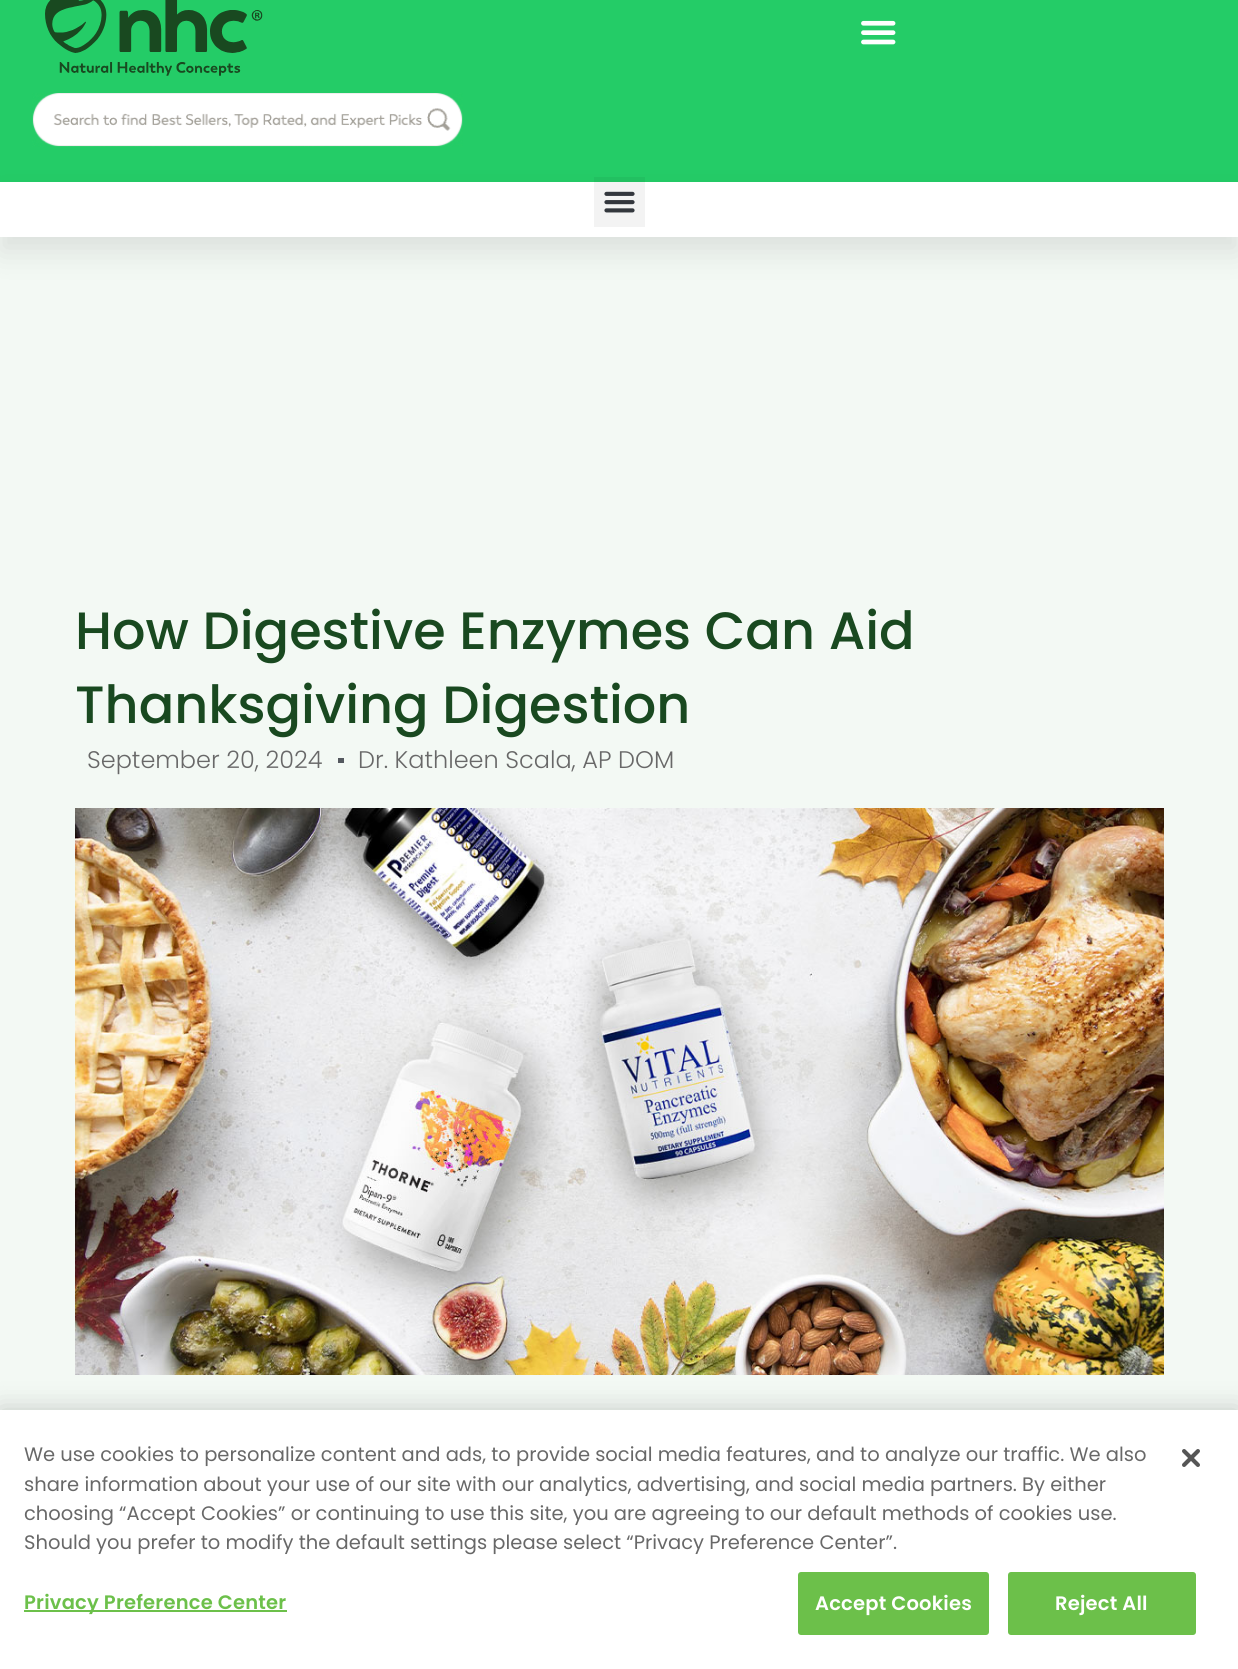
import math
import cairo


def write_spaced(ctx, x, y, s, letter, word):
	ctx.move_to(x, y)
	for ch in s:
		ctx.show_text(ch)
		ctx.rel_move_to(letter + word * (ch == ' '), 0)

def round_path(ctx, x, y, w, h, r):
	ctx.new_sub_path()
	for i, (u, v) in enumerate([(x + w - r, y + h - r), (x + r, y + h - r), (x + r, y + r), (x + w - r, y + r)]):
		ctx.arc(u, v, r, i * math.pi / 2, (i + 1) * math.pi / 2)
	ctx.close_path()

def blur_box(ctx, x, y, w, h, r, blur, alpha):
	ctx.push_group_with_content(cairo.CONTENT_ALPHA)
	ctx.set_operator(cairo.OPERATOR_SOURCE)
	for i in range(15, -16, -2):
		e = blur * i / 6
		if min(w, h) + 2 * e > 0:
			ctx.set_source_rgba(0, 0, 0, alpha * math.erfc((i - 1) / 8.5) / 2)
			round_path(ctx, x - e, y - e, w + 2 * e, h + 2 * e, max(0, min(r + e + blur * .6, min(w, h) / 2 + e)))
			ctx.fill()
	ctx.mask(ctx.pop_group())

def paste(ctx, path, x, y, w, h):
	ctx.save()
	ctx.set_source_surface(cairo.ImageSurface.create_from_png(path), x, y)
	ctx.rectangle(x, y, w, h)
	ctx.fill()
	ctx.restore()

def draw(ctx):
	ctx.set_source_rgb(0.953, 0.976, 0.957)
	ctx.paint()
	ctx.set_source_rgb(0.141, 0.8, 0.404)
	ctx.rectangle(0, 0, 1238, 182)
	ctx.fill()
	paste(ctx, 'media/1.png', 45, 0, 218, 76)
	paste(ctx, 'media/2.png', 861, 20, 35, 25)
	paste(ctx, 'media/3.png', 32, 93, 431, 54)
	ctx.set_source_rgb(0, 0, 0)
	blur_box(ctx, 0, 197, 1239, 55, 0, 15, 0.1)
	ctx.set_source_rgb(1, 1, 1)
	ctx.rectangle(0, 182, 1238, 55)
	ctx.fill()
	ctx.set_source_rgba(0, 0, 0, 0.05)
	ctx.rectangle(594, 177, 51, 50)
	ctx.fill()
	paste(ctx, 'media/4.png', 604, 191, 31, 22)
	ctx.select_font_face('Poppins Medium')
	ctx.set_font_size(52.5)
	ctx.set_source_rgb(0.098, 0.286, 0.125)
	ctx.move_to(75, 649)
	ctx.show_text('How Digestive Enzymes Can Aid')
	ctx.move_to(75, 723)
	ctx.show_text('Thanksgiving Digestion')
	ctx.select_font_face('Poppins Light')
	ctx.set_font_size(24)
	ctx.set_source_rgb(0.408, 0.408, 0.408)
	ctx.move_to(87, 768)
	ctx.show_text('September 20, 2024')
	ctx.set_source_rgb(0.329, 0.349, 0.373)
	ctx.rectangle(338, 758, 6, 5)
	ctx.fill()
	ctx.set_source_rgb(0.408, 0.408, 0.408)
	ctx.move_to(358, 768)
	ctx.show_text('Dr. Kathleen Scala, AP DOM')
	paste(ctx, 'media/5.png', 75, 808, 1089, 567)
	ctx.set_source_rgb(0, 0, 0)
	blur_box(ctx, 0, 1410, 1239, 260, 0, 13.5, 0.2)
	ctx.set_source_rgb(1, 1, 1)
	ctx.rectangle(0, 1410, 1238, 259)
	ctx.fill()
	ctx.select_font_face('Poppins')
	ctx.set_font_size(19.5)
	ctx.set_source_rgb(0.408, 0.408, 0.408)
	for x, y, s in [
		(24, 1461, 'We use cookies to personalize content and ads, to provide social media features, and to analyze our traffic. We also'),
		(24, 1491, 'share information about your use of our site with our analytics, advertising, and social media partners. By either'),
		(24, 1520, 'choosing “Accept Cookies” or continuing to use this site, you are agreeing to our default methods of cookies use.'),
		(24, 1549, 'Should you prefer to modify the default settings please select “Privacy Preference Center”.'),
	]:
		ctx.move_to(x, y)
		ctx.show_text(s)
	ctx.set_source_rgb(0.424, 0.753, 0.29)
	ctx.rectangle(24, 1610, 263, 2)
	ctx.fill()
	ctx.select_font_face('Poppins SemiBold')
	write_spaced(ctx, 24, 1609, 'Privacy Preference Center', 0.2, 0)
	round_path(ctx, 799, 1573, 189, 61, 2)
	ctx.fill_preserve()
	ctx.stroke()
	ctx.set_source_rgb(1, 1, 1)
	write_spaced(ctx, 815, 1610, 'Accept Cookies', 0.2, 0)
	ctx.set_source_rgb(0.424, 0.753, 0.29)
	round_path(ctx, 1009, 1573, 186, 61, 2)
	ctx.fill_preserve()
	ctx.stroke()
	ctx.set_source_rgb(1, 1, 1)
	write_spaced(ctx, 1055, 1610, 'Reject All', 0.2, 0)
	paste(ctx, 'media/6.png', 1182, 1449, 18, 18)


surface = cairo.ImageSurface(cairo.FORMAT_RGB24, 1238, 1669)
ctx = cairo.Context(surface)
options = cairo.FontOptions()
options.set_hint_metrics(cairo.HINT_METRICS_OFF)
options.set_hint_style(cairo.HINT_STYLE_NONE)
ctx.set_font_options(options)
ctx.set_miter_limit(4)
draw(ctx)
surface.write_to_png('image.png')
